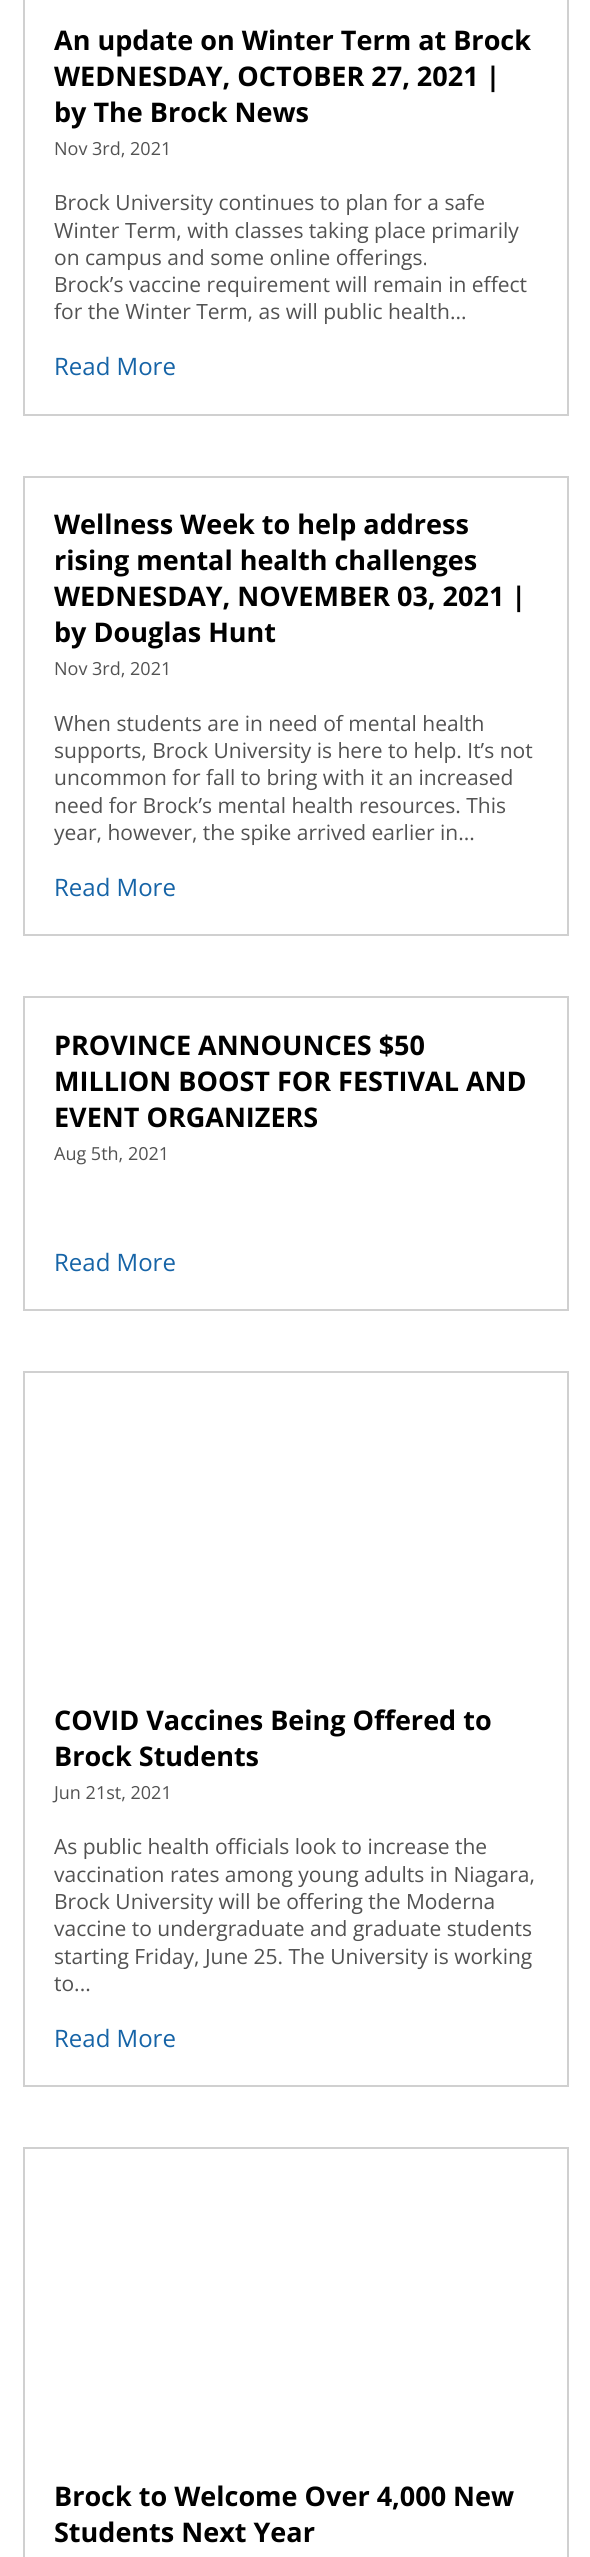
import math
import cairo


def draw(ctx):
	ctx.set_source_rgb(1, 1, 1)
	ctx.paint()
	ctx.rectangle(24, -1, 544, 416)
	ctx.set_source_rgb(0.816, 0.816, 0.816)
	ctx.stroke()
	ctx.select_font_face('Open Sans', cairo.FONT_SLANT_NORMAL, cairo.FONT_WEIGHT_BOLD)
	ctx.set_font_size(27)
	ctx.set_source_rgb(0, 0, 0)
	for x, y, s in [
		(54, 50, 'An update on Winter Term at Brock'),
		(54, 86, 'WEDNESDAY, OCTOBER 27, 2021 |'),
		(54, 122, 'by The Brock News'),
	]:
		ctx.move_to(x, y)
		ctx.show_text(s)
	ctx.select_font_face('Open Sans')
	ctx.set_font_size(18)
	ctx.set_source_rgb(0.322, 0.322, 0.322)
	ctx.move_to(54, 155)
	ctx.show_text('Nov 3rd, 2021')
	ctx.set_font_size(21)
	for x, y, s in [
		(54, 210, 'Brock University continues to plan for a safe'),
		(54, 238, 'Winter Term, with classes taking place primarily'),
		(54, 265, 'on campus and some online offerings.'),
		(54, 292, 'Brock’s vaccine requirement will remain in effect'),
		(54, 319, 'for the Winter Term, as will public health...'),
	]:
		ctx.move_to(x, y)
		ctx.show_text(s)
	ctx.set_font_size(24)
	ctx.set_source_rgb(0.086, 0.392, 0.655)
	ctx.move_to(54, 375)
	ctx.show_text('Read More')
	ctx.rectangle(24, 477, 544, 458)
	ctx.set_source_rgb(0.816, 0.816, 0.816)
	ctx.stroke()
	ctx.select_font_face('Open Sans', cairo.FONT_SLANT_NORMAL, cairo.FONT_WEIGHT_BOLD)
	ctx.set_font_size(27)
	ctx.set_source_rgb(0, 0, 0)
	for x, y, s in [
		(54, 534, 'Wellness Week to help address'),
		(54, 570, 'rising mental health challenges'),
		(54, 606, 'WEDNESDAY, NOVEMBER 03, 2021 |'),
		(54, 642, 'by Douglas Hunt'),
	]:
		ctx.move_to(x, y)
		ctx.show_text(s)
	ctx.select_font_face('Open Sans')
	ctx.set_font_size(18)
	ctx.set_source_rgb(0.322, 0.322, 0.322)
	ctx.move_to(54, 675)
	ctx.show_text('Nov 3rd, 2021')
	ctx.set_font_size(21)
	for x, y, s in [
		(54, 731, 'When students are in need of mental health'),
		(54, 758, 'supports, Brock University is here to help. It’s not'),
		(54, 785, 'uncommon for fall to bring with it an increased'),
		(54, 813, 'need for Brock’s mental health resources. This'),
		(54, 840, 'year, however, the spike arrived earlier in...'),
	]:
		ctx.move_to(x, y)
		ctx.show_text(s)
	ctx.set_font_size(24)
	ctx.set_source_rgb(0.086, 0.392, 0.655)
	ctx.move_to(54, 896)
	ctx.show_text('Read More')
	ctx.rectangle(24, 997, 544, 313)
	ctx.set_source_rgb(0.816, 0.816, 0.816)
	ctx.stroke()
	ctx.select_font_face('Open Sans', cairo.FONT_SLANT_NORMAL, cairo.FONT_WEIGHT_BOLD)
	ctx.set_font_size(27)
	ctx.set_source_rgb(0, 0, 0)
	for x, y, s in [
		(54, 1055, 'PROVINCE ANNOUNCES $50'),
		(54, 1091, 'MILLION BOOST FOR FESTIVAL AND'),
		(54, 1127, 'EVENT ORGANIZERS'),
	]:
		ctx.move_to(x, y)
		ctx.show_text(s)
	ctx.select_font_face('Open Sans')
	ctx.set_font_size(18)
	ctx.set_source_rgb(0.322, 0.322, 0.322)
	ctx.move_to(54, 1160)
	ctx.show_text('Aug 5th, 2021')
	ctx.set_font_size(24)
	ctx.set_source_rgb(0.086, 0.392, 0.655)
	ctx.move_to(54, 1271)
	ctx.show_text('Read More')
	ctx.rectangle(24, 1372, 544, 714)
	ctx.set_source_rgb(0.816, 0.816, 0.816)
	ctx.stroke()
	ctx.select_font_face('Open Sans', cairo.FONT_SLANT_NORMAL, cairo.FONT_WEIGHT_BOLD)
	ctx.set_font_size(27)
	ctx.set_source_rgb(0, 0, 0)
	ctx.move_to(54, 1730)
	ctx.show_text('COVID Vaccines Being Offered to')
	ctx.move_to(54, 1766)
	ctx.show_text('Brock Students')
	ctx.select_font_face('Open Sans')
	ctx.set_font_size(18)
	ctx.set_source_rgb(0.322, 0.322, 0.322)
	ctx.move_to(54, 1799)
	ctx.show_text('Jun 21st, 2021')
	ctx.set_font_size(21)
	for x, y, s in [
		(54, 1854, 'As public health officials look to increase the'),
		(54, 1882, 'vaccination rates among young adults in Niagara,'),
		(54, 1909, 'Brock University will be offering the Moderna'),
		(54, 1936, 'vaccine to undergraduate and graduate students'),
		(54, 1964, 'starting Friday, June 25. The University is working'),
		(54, 1991, 'to...'),
	]:
		ctx.move_to(x, y)
		ctx.show_text(s)
	ctx.set_font_size(24)
	ctx.set_source_rgb(0.086, 0.392, 0.655)
	ctx.move_to(54, 2047)
	ctx.show_text('Read More')
	ctx.rectangle(24, 2148, 544, 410)
	ctx.set_source_rgb(0.816, 0.816, 0.816)
	ctx.stroke()
	ctx.select_font_face('Open Sans', cairo.FONT_SLANT_NORMAL, cairo.FONT_WEIGHT_BOLD)
	ctx.set_font_size(27)
	ctx.set_source_rgb(0, 0, 0)
	ctx.move_to(54, 2506)
	ctx.show_text('Brock to Welcome Over 4,000 New')
	ctx.move_to(54, 2542)
	ctx.show_text('Students Next Year')


surface = cairo.ImageSurface(cairo.FORMAT_RGB24, 590, 2557)
ctx = cairo.Context(surface)
options = cairo.FontOptions()
options.set_hint_metrics(cairo.HINT_METRICS_OFF)
options.set_hint_style(cairo.HINT_STYLE_NONE)
ctx.set_font_options(options)
ctx.set_miter_limit(4)
draw(ctx)
surface.write_to_png('image.png')
